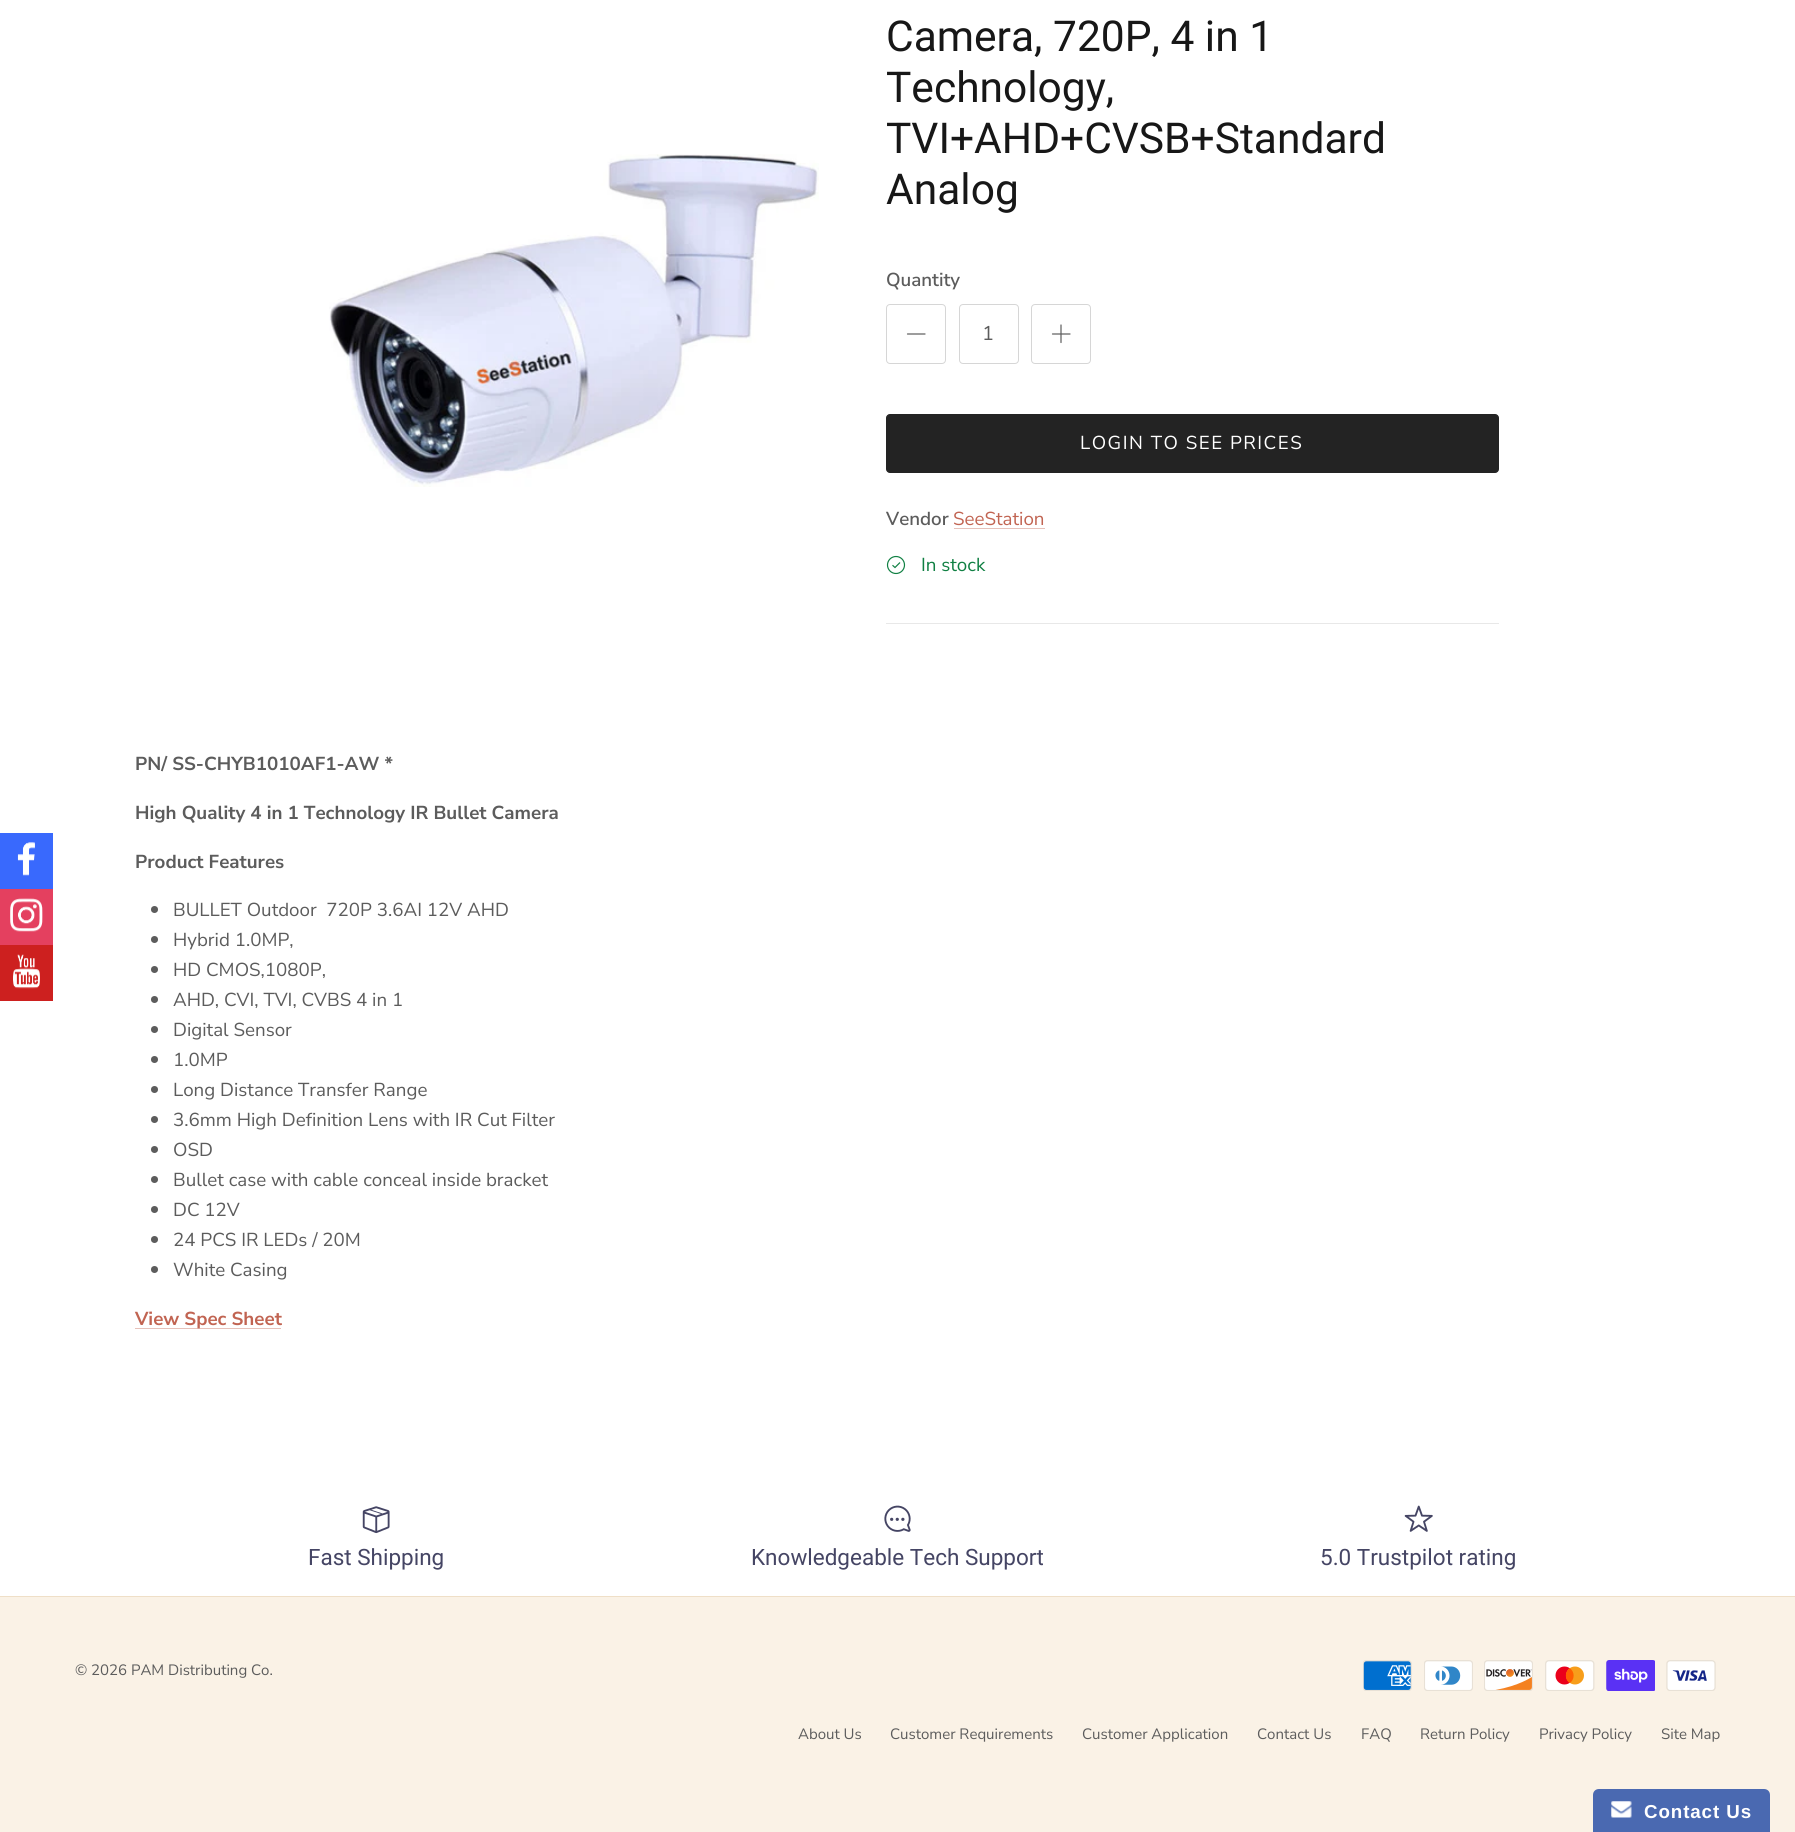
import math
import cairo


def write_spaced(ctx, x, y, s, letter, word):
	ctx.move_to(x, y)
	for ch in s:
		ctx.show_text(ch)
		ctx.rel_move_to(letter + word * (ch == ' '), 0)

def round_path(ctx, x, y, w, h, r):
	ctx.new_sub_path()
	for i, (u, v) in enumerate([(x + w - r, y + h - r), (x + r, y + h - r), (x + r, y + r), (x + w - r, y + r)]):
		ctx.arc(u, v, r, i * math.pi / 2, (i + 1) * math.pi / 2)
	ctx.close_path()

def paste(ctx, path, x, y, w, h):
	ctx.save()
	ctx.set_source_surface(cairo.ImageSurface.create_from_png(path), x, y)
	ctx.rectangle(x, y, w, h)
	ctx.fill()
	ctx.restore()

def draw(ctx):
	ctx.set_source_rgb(1, 1, 1)
	ctx.paint()
	ctx.set_source_rgb(0.224, 0.412, 0.992)
	ctx.rectangle(0, 833, 53, 56)
	ctx.fill()
	paste(ctx, 'media/1.png', 17, 842, 18, 34)
	ctx.set_source_rgb(0.894, 0.251, 0.373)
	ctx.rectangle(0, 889, 53, 56)
	ctx.fill()
	paste(ctx, 'media/2.png', 10, 898, 33, 34)
	ctx.set_source_rgb(0.804, 0.125, 0.122)
	ctx.rectangle(0, 945, 53, 56)
	ctx.fill()
	paste(ctx, 'media/3.png', 13, 954, 27, 35)
	paste(ctx, 'media/4.png', 329, 154, 490, 333)
	ctx.select_font_face('Roboto')
	ctx.set_font_size(42.5)
	ctx.set_source_rgb(0.09, 0.09, 0.09)
	for x, y, s in [
		(886, 51, 'Camera, 720P, 4 in 1'),
		(886, 102, 'Technology,'),
		(886, 153, 'TVI+AHD+CVSB+Standard'),
		(886, 204, 'Analog'),
	]:
		ctx.move_to(x, y)
		ctx.show_text(s)
	ctx.select_font_face('Nunito Sans SemiBold')
	ctx.set_font_size(18.75)
	ctx.set_source_rgb(0.361, 0.361, 0.361)
	ctx.move_to(886, 286)
	ctx.show_text('Quantity')
	round_path(ctx, 886.5, 304.5, 59, 59, 3.5)
	ctx.set_source_rgb(0.839, 0.839, 0.839)
	ctx.set_line_width(1)
	ctx.stroke()
	ctx.new_path()
	ctx.move_to(907.5, 334)
	ctx.line_to(925, 334)
	ctx.set_source_rgb(0.361, 0.361, 0.361)
	ctx.set_line_width(1.2)
	ctx.set_line_cap(cairo.LINE_CAP_ROUND)
	ctx.set_line_join(cairo.LINE_JOIN_ROUND)
	ctx.stroke()
	round_path(ctx, 959.5, 304.5, 59, 59, 3.5)
	ctx.set_source_rgb(0.839, 0.839, 0.839)
	ctx.set_line_width(1)
	ctx.set_line_cap(cairo.LINE_CAP_BUTT)
	ctx.set_line_join(cairo.LINE_JOIN_MITER)
	ctx.stroke()
	ctx.select_font_face('Nunito Sans')
	ctx.set_font_size(20)
	ctx.set_source_rgb(0.361, 0.361, 0.361)
	ctx.move_to(982, 340)
	ctx.show_text('1')
	round_path(ctx, 1031.5, 304.5, 59, 59, 3.5)
	ctx.set_source_rgb(0.839, 0.839, 0.839)
	ctx.stroke()
	ctx.new_path()
	ctx.move_to(1061, 325)
	ctx.line_to(1061, 342.5)
	ctx.move_to(1052.5, 334)
	ctx.line_to(1070, 334)
	ctx.set_source_rgb(0.361, 0.361, 0.361)
	ctx.set_line_width(1.2)
	ctx.set_line_cap(cairo.LINE_CAP_ROUND)
	ctx.set_line_join(cairo.LINE_JOIN_ROUND)
	ctx.stroke()
	ctx.set_source_rgb(0.137, 0.137, 0.137)
	round_path(ctx, 886.5, 414.5, 612, 58, 3.5)
	ctx.fill_preserve()
	ctx.set_line_width(1)
	ctx.set_line_cap(cairo.LINE_CAP_BUTT)
	ctx.set_line_join(cairo.LINE_JOIN_MITER)
	ctx.stroke()
	ctx.set_font_size(18.75)
	ctx.set_source_rgb(1, 1, 1)
	write_spaced(ctx, 1080, 449, 'LOGIN TO SEE PRICES', 1.5, 0)
	ctx.select_font_face('Nunito Sans SemiBold')
	ctx.set_source_rgb(0.361, 0.361, 0.361)
	ctx.move_to(886, 525)
	ctx.show_text('Vendor')
	ctx.select_font_face('Nunito Sans')
	ctx.set_source_rgb(0.757, 0.392, 0.322)
	ctx.move_to(953, 525)
	ctx.show_text('SeeStation')
	ctx.set_source_rgb(0.902, 0.757, 0.729)
	ctx.rectangle(954, 528, 91, 1)
	ctx.fill()
	paste(ctx, 'media/5.png', 886, 555, 20, 20)
	ctx.set_source_rgb(0.063, 0.502, 0.263)
	ctx.move_to(921, 571)
	ctx.show_text('In stock')
	ctx.set_source_rgb(0.91, 0.91, 0.91)
	ctx.rectangle(886, 623, 613, 1)
	ctx.fill()
	ctx.select_font_face('Nunito Sans', cairo.FONT_SLANT_NORMAL, cairo.FONT_WEIGHT_BOLD)
	ctx.set_source_rgb(0.361, 0.361, 0.361)
	for x, y, s in [
		(135, 770, 'PN/ SS-CHYB1010AF1-AW *'),
		(135, 819, 'High Quality 4 in 1 Technology IR Bullet Camera'),
		(135, 868, 'Product Features'),
	]:
		ctx.move_to(x, y)
		ctx.show_text(s)
	ctx.new_path()
	ctx.arc(154.5, 909.5, 3.5, 0, 2 * math.pi)
	ctx.fill()
	ctx.select_font_face('Nunito Sans')
	ctx.move_to(173, 916)
	ctx.show_text('BULLET Outdoor  720P 3.6AI 12V AHD')
	ctx.new_path()
	ctx.arc(154.5, 939.5, 3.5, 0, 2 * math.pi)
	ctx.fill()
	ctx.move_to(173, 946)
	ctx.show_text('Hybrid 1.0MP,')
	ctx.new_path()
	ctx.arc(154.5, 969.5, 3.5, 0, 2 * math.pi)
	ctx.fill()
	ctx.move_to(173, 976)
	ctx.show_text('HD CMOS,1080P,')
	ctx.new_path()
	ctx.arc(154.5, 999.5, 3.5, 0, 2 * math.pi)
	ctx.fill()
	ctx.move_to(173, 1006)
	ctx.show_text('AHD, CVI, TVI, CVBS 4 in 1')
	ctx.new_path()
	ctx.arc(154.5, 1029.5, 3.5, 0, 2 * math.pi)
	ctx.fill()
	ctx.move_to(173, 1036)
	ctx.show_text('Digital Sensor')
	ctx.new_path()
	ctx.arc(154.5, 1059.5, 3.5, 0, 2 * math.pi)
	ctx.fill()
	ctx.move_to(173, 1066)
	ctx.show_text('1.0MP')
	ctx.new_path()
	ctx.arc(154.5, 1089.5, 3.5, 0, 2 * math.pi)
	ctx.fill()
	ctx.move_to(173, 1096)
	ctx.show_text('Long Distance Transfer Range')
	ctx.new_path()
	ctx.arc(154.5, 1119.5, 3.5, 0, 2 * math.pi)
	ctx.fill()
	ctx.move_to(173, 1126)
	ctx.show_text('3.6mm High Definition Lens with IR Cut Filter')
	ctx.new_path()
	ctx.arc(154.5, 1149.5, 3.5, 0, 2 * math.pi)
	ctx.fill()
	ctx.move_to(173, 1156)
	ctx.show_text('OSD')
	ctx.new_path()
	ctx.arc(154.5, 1179.5, 3.5, 0, 2 * math.pi)
	ctx.fill()
	ctx.move_to(173, 1186)
	ctx.show_text('Bullet case with cable conceal inside bracket')
	ctx.new_path()
	ctx.arc(154.5, 1209.5, 3.5, 0, 2 * math.pi)
	ctx.fill()
	ctx.move_to(173, 1216)
	ctx.show_text('DC 12V')
	ctx.new_path()
	ctx.arc(154.5, 1239.5, 3.5, 0, 2 * math.pi)
	ctx.fill()
	ctx.move_to(173, 1246)
	ctx.show_text('24 PCS IR LEDs / 20M')
	ctx.new_path()
	ctx.arc(154.5, 1269.5, 3.5, 0, 2 * math.pi)
	ctx.fill()
	ctx.move_to(173, 1276)
	ctx.show_text('White Casing')
	ctx.set_source_rgb(0.902, 0.757, 0.729)
	ctx.rectangle(135, 1328, 146, 1)
	ctx.fill()
	ctx.select_font_face('Nunito Sans', cairo.FONT_SLANT_NORMAL, cairo.FONT_WEIGHT_BOLD)
	ctx.set_source_rgb(0.757, 0.392, 0.322)
	ctx.move_to(135, 1325)
	ctx.show_text('View Spec Sheet')
	paste(ctx, 'media/6.png', 362, 1506, 28, 28)
	ctx.select_font_face('Roboto')
	ctx.set_font_size(22.5)
	ctx.set_source_rgb(0.271, 0.271, 0.392)
	ctx.move_to(308, 1565)
	ctx.show_text('Fast Shipping')
	paste(ctx, 'media/7.png', 884, 1505, 27, 27)
	ctx.move_to(751, 1565)
	ctx.show_text('Knowledgeable Tech Support')
	paste(ctx, 'media/8.png', 1404, 1505, 29, 27)
	ctx.move_to(1320, 1565)
	ctx.show_text('5.0 Trustpilot rating')
	ctx.set_source_rgb(0.98, 0.949, 0.902)
	ctx.rectangle(0, 1597, 1795, 235)
	ctx.fill()
	ctx.set_source_rgb(0.937, 0.875, 0.78)
	ctx.rectangle(0, 1596, 1795, 1)
	ctx.fill()
	ctx.select_font_face('Nunito Sans')
	ctx.set_font_size(15)
	ctx.set_source_rgb(0.361, 0.361, 0.361)
	ctx.move_to(75, 1675)
	ctx.show_text('© 2026 PAM Distributing Co.')
	paste(ctx, 'media/9.png', 1363, 1660, 49, 31)
	paste(ctx, 'media/10.png', 1424, 1660, 49, 31)
	paste(ctx, 'media/11.png', 1484, 1660, 49, 31)
	paste(ctx, 'media/12.png', 1545, 1660, 50, 31)
	paste(ctx, 'media/13.png', 1606, 1660, 49, 31)
	paste(ctx, 'media/14.png', 1666, 1660, 50, 31)
	for x, y, s in [
		(798, 1739, 'About Us'),
		(890, 1739, 'Customer Requirements'),
		(1082, 1739, 'Customer Application'),
		(1257, 1739, 'Contact Us'),
		(1361, 1739, 'FAQ'),
		(1420, 1739, 'Return Policy'),
		(1539, 1739, 'Privacy Policy'),
		(1661, 1739, 'Site Map'),
	]:
		ctx.move_to(x, y)
		ctx.show_text(s)
	ctx.set_source_rgb(0.29, 0.412, 0.694)
	ctx.new_path()
	ctx.move_to(1599, 1789)
	ctx.line_to(1764, 1789)
	ctx.curve_to(1767.5, 1789, 1770, 1791.5, 1770, 1795)
	ctx.line_to(1770, 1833)
	ctx.line_to(1593, 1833)
	ctx.line_to(1593, 1795)
	ctx.curve_to(1593, 1791.5, 1595.5, 1789, 1599, 1789)
	ctx.close_path()
	ctx.fill()
	paste(ctx, 'media/15.png', 1611, 1801, 21, 17)
	ctx.select_font_face('Liberation Sans', cairo.FONT_SLANT_NORMAL, cairo.FONT_WEIGHT_BOLD)
	ctx.set_font_size(18.75)
	ctx.set_source_rgb(1, 1, 1)
	write_spaced(ctx, 1644, 1818, 'Contact Us', 0.9, 0)


surface = cairo.ImageSurface(cairo.FORMAT_RGB24, 1795, 1832)
ctx = cairo.Context(surface)
options = cairo.FontOptions()
options.set_hint_metrics(cairo.HINT_METRICS_OFF)
options.set_hint_style(cairo.HINT_STYLE_NONE)
ctx.set_font_options(options)
ctx.set_miter_limit(4)
draw(ctx)
surface.write_to_png('image.png')
